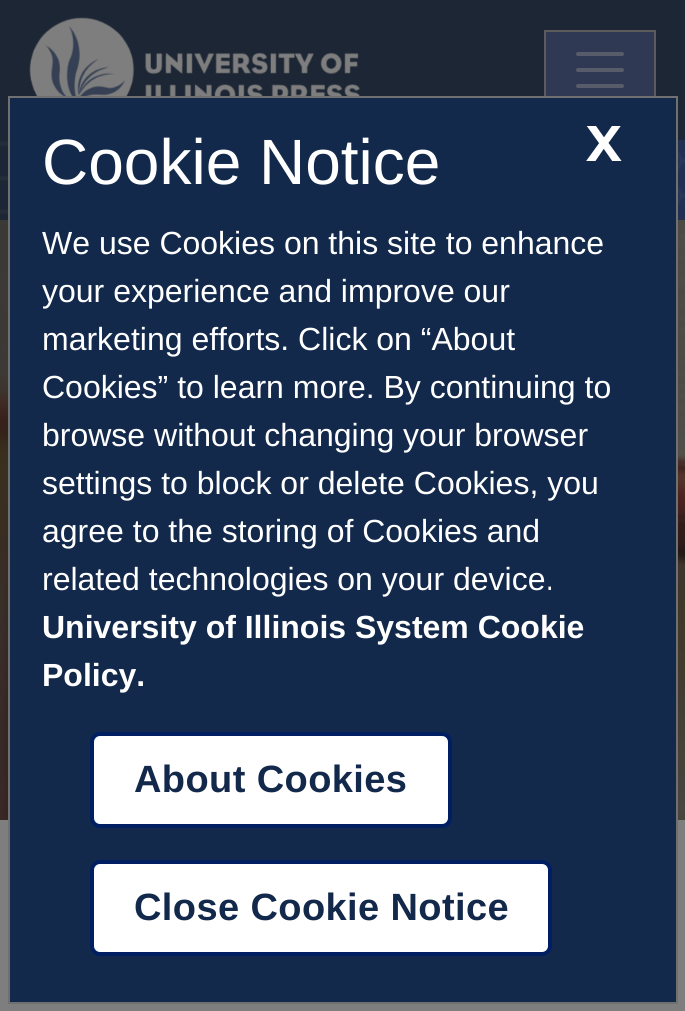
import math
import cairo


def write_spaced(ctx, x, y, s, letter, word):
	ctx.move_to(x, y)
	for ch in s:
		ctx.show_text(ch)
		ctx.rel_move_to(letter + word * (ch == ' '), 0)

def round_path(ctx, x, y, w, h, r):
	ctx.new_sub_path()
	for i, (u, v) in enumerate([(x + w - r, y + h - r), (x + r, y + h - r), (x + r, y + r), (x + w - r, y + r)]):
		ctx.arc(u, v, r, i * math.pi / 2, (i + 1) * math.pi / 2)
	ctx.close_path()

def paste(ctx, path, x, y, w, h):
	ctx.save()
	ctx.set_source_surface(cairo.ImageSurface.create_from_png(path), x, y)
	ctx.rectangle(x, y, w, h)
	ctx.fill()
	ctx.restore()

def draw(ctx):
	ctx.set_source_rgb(0.494, 0.494, 0.494)
	ctx.paint()
	ctx.set_source_rgb(0.114, 0.149, 0.204)
	ctx.rectangle(0, 0, 685, 140)
	ctx.fill()
	paste(ctx, 'media/1.png', 29, 17, 331, 79)
	ctx.set_source_rgb(0.184, 0.224, 0.329)
	ctx.rectangle(546, 32, 108, 64)
	ctx.fill()
	ctx.rectangle(545, 31, 110, 78)
	ctx.set_source_rgb(0.357, 0.357, 0.357)
	ctx.stroke()
	ctx.new_path()
	ctx.move_to(578, 54)
	ctx.line_to(622, 54)
	ctx.move_to(578, 70)
	ctx.line_to(622, 70)
	ctx.move_to(578, 86)
	ctx.line_to(622, 86)
	ctx.set_source_rgb(0.337, 0.361, 0.412)
	ctx.set_line_width(4)
	ctx.set_line_cap(cairo.LINE_CAP_ROUND)
	ctx.stroke()
	paste(ctx, 'media/2.png', 0, 140, 685, 80)
	paste(ctx, 'media/3.png', 0, 220, 685, 600)
	ctx.set_source_rgb(0.075, 0.161, 0.294)
	ctx.rectangle(9, 97, 668, 906)
	ctx.fill_preserve()
	ctx.set_source_rgb(0.439, 0.439, 0.439)
	ctx.set_line_width(2)
	ctx.set_line_cap(cairo.LINE_CAP_BUTT)
	ctx.stroke()
	ctx.select_font_face('Liberation Sans')
	ctx.set_font_size(64)
	ctx.set_source_rgb(1, 1, 1)
	ctx.move_to(42, 184)
	ctx.show_text('Cookie Notice')
	ctx.select_font_face('Montserrat', cairo.FONT_SLANT_NORMAL, cairo.FONT_WEIGHT_BOLD)
	ctx.set_font_size(50)
	ctx.move_to(586, 161)
	ctx.show_text('X')
	ctx.select_font_face('Liberation Sans')
	ctx.set_font_size(32)
	for x, y, s in [
		(42, 254, 'We use Cookies on this site to enhance'),
		(42, 302, 'your experience and improve our'),
		(42, 350, 'marketing efforts. Click on “About'),
		(42, 398, 'Cookies” to learn more. By continuing to'),
		(42, 446, 'browse without changing your browser'),
		(42, 494, 'settings to block or delete Cookies, you'),
		(42, 542, 'agree to the storing of Cookies and'),
		(42, 590, 'related technologies on your device.'),
	]:
		ctx.move_to(x, y)
		ctx.show_text(s)
	ctx.select_font_face('Liberation Sans', cairo.FONT_SLANT_NORMAL, cairo.FONT_WEIGHT_BOLD)
	ctx.move_to(42, 638)
	ctx.show_text('University of Illinois System Cookie')
	ctx.move_to(42, 686)
	ctx.show_text('Policy.')
	round_path(ctx, 92, 734, 358, 92, 8)
	ctx.fill_preserve()
	ctx.set_source_rgb(0, 0.118, 0.384)
	ctx.set_line_width(4)
	ctx.stroke()
	ctx.set_font_size(38)
	ctx.set_source_rgb(0.075, 0.161, 0.294)
	write_spaced(ctx, 134, 792, 'About Cookies', 0.4, 0)
	ctx.set_source_rgb(1, 1, 1)
	round_path(ctx, 92, 862, 458, 92, 8)
	ctx.fill_preserve()
	ctx.set_source_rgb(0, 0.118, 0.384)
	ctx.stroke()
	ctx.set_source_rgb(0.075, 0.161, 0.294)
	write_spaced(ctx, 134, 920, 'Close Cookie Notice', 0.4, 0)


surface = cairo.ImageSurface(cairo.FORMAT_RGB24, 685, 1011)
ctx = cairo.Context(surface)
options = cairo.FontOptions()
options.set_hint_metrics(cairo.HINT_METRICS_OFF)
options.set_hint_style(cairo.HINT_STYLE_NONE)
ctx.set_font_options(options)
ctx.set_miter_limit(4)
draw(ctx)
surface.write_to_png('image.png')
